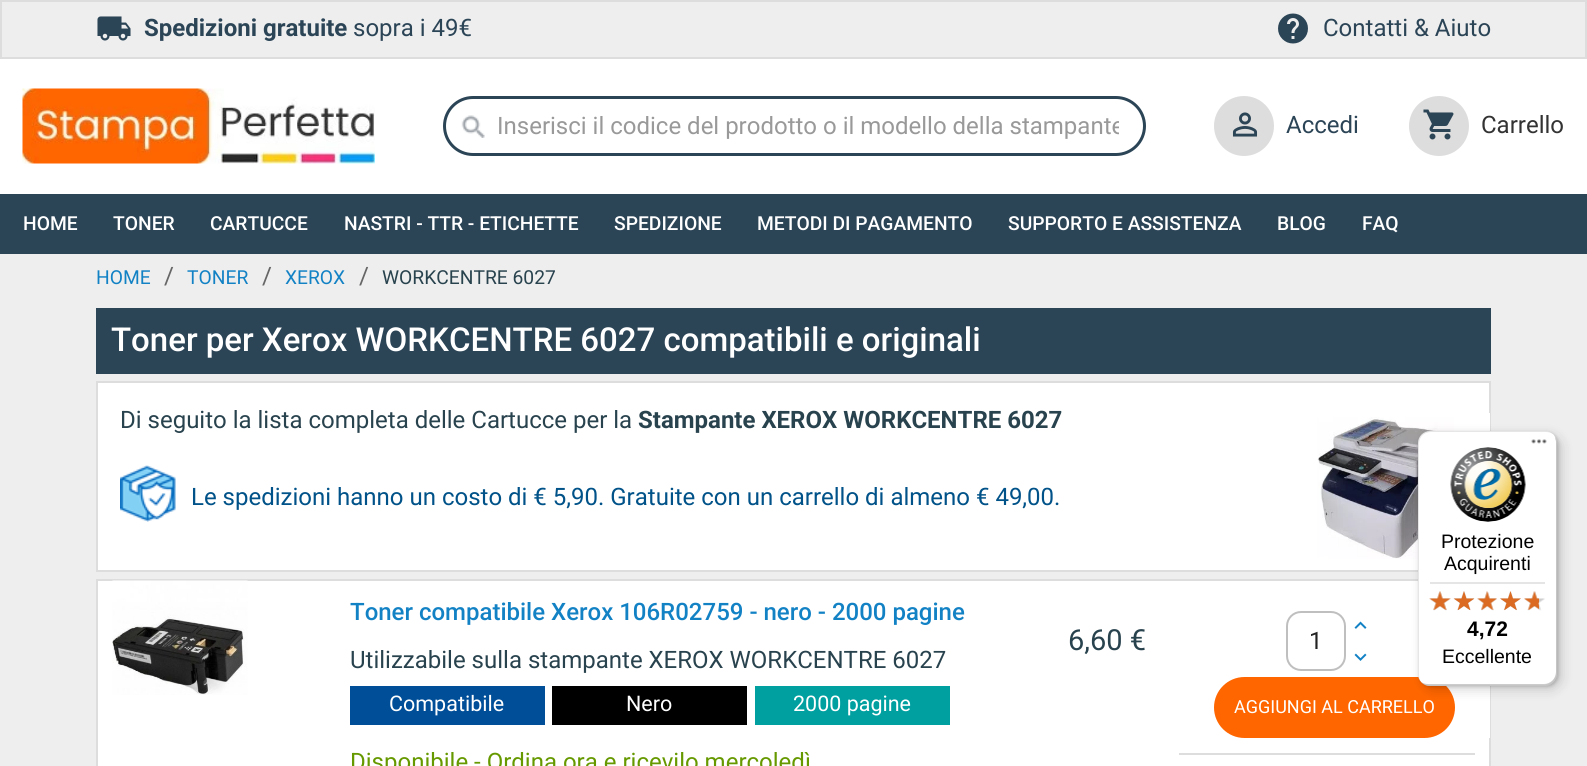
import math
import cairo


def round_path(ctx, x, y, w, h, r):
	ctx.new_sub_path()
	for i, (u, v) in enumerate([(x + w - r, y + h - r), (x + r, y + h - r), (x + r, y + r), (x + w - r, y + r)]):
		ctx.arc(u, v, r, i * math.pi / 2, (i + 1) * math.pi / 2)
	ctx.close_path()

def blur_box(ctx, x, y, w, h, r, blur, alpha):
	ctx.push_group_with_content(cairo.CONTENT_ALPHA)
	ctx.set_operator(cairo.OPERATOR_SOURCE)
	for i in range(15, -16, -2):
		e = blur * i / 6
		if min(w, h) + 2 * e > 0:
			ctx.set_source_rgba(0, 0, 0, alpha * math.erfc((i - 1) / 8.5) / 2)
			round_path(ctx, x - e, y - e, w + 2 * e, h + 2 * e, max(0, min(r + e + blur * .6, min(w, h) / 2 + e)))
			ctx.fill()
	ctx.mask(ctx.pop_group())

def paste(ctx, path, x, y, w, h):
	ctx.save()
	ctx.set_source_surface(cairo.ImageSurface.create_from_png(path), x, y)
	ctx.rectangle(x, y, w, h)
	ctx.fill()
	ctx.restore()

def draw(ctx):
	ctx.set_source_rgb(1, 1, 1)
	ctx.paint()
	ctx.set_source_rgb(0.933, 0.933, 0.933)
	ctx.rectangle(1, 1, 1585, 57)
	ctx.fill_preserve()
	ctx.set_source_rgb(0.867, 0.867, 0.867)
	ctx.stroke()
	paste(ctx, 'media/1.png', 97, 16, 34, 25)
	ctx.select_font_face('Roboto', cairo.FONT_SLANT_NORMAL, cairo.FONT_WEIGHT_BOLD)
	ctx.set_font_size(24)
	ctx.set_source_rgb(0.169, 0.267, 0.337)
	ctx.move_to(144, 36)
	ctx.show_text('Spedizioni gratuite')
	ctx.select_font_face('Roboto')
	ctx.move_to(353, 36)
	ctx.show_text('sopra i 49€')
	paste(ctx, 'media/2.png', 1278, 13, 30, 31)
	ctx.move_to(1323, 36)
	ctx.show_text('Contatti & Aiuto')
	paste(ctx, 'media/3.png', 22, 88, 353, 76)
	paste(ctx, 'media/4.png', 461, 115, 24, 23)
	round_path(ctx, 444.5, 97.5, 700, 57, 28.5)
	ctx.set_line_width(3)
	ctx.stroke()
	ctx.save()
	ctx.rectangle(498, 111, 621, 29)
	ctx.clip()
	ctx.set_source_rgb(0.6, 0.6, 0.6)
	ctx.move_to(497, 134)
	ctx.show_text('Inserisci il codice del prodotto o il modello della stampante')
	ctx.restore()
	ctx.set_source_rgb(0.867, 0.867, 0.867)
	ctx.new_path()
	ctx.arc(1244, 126, 30, 0, 2 * math.pi)
	ctx.fill()
	paste(ctx, 'media/5.png', 1232, 112, 26, 25)
	ctx.set_source_rgb(0.169, 0.267, 0.337)
	ctx.move_to(1286, 133)
	ctx.show_text('Accedi')
	ctx.set_source_rgb(0.867, 0.867, 0.867)
	ctx.new_path()
	ctx.arc(1439, 126, 30, 0, 2 * math.pi)
	ctx.fill()
	paste(ctx, 'media/6.png', 1423, 109, 31, 31)
	ctx.set_source_rgb(0.2, 0.2, 0.2)
	ctx.move_to(1481, 133)
	ctx.show_text('Carrello')
	ctx.set_source_rgb(0.169, 0.267, 0.337)
	ctx.rectangle(0, 194, 1587, 60)
	ctx.fill()
	ctx.select_font_face('Roboto Medium')
	ctx.set_font_size(19.25)
	ctx.set_source_rgb(1, 1, 1)
	for x, y, s in [
		(23, 230, 'HOME'),
		(113, 230, 'TONER'),
		(210, 230, 'CARTUCCE'),
		(344, 230, 'NASTRI - TTR - ETICHETTE'),
		(614, 230, 'SPEDIZIONE'),
		(757, 230, 'METODI DI PAGAMENTO'),
		(1008, 230, 'SUPPORTO E ASSISTENZA'),
		(1277, 230, 'BLOG'),
		(1362, 230, 'FAQ'),
	]:
		ctx.move_to(x, y)
		ctx.show_text(s)
	ctx.set_source_rgb(0.933, 0.933, 0.933)
	ctx.rectangle(0, 254, 1587, 512)
	ctx.fill()
	ctx.select_font_face('Roboto')
	ctx.set_source_rgb(0.075, 0.51, 0.773)
	ctx.move_to(96, 284)
	ctx.show_text('HOME')
	ctx.set_font_size(24)
	ctx.set_source_rgb(0.4, 0.4, 0.4)
	ctx.move_to(164, 284)
	ctx.show_text('/')
	ctx.set_font_size(19.25)
	ctx.set_source_rgb(0.075, 0.51, 0.773)
	ctx.move_to(187, 284)
	ctx.show_text('TONER')
	ctx.set_font_size(24)
	ctx.set_source_rgb(0.4, 0.4, 0.4)
	ctx.move_to(262, 284)
	ctx.show_text('/')
	ctx.set_font_size(19.25)
	ctx.set_source_rgb(0.075, 0.51, 0.773)
	ctx.move_to(285, 284)
	ctx.show_text('XEROX')
	ctx.set_font_size(24)
	ctx.set_source_rgb(0.4, 0.4, 0.4)
	ctx.move_to(359, 284)
	ctx.show_text('/')
	ctx.set_font_size(19.25)
	ctx.set_source_rgb(0.161, 0.263, 0.306)
	ctx.move_to(382, 284)
	ctx.show_text('WORKCENTRE 6027')
	ctx.set_source_rgb(0.169, 0.267, 0.337)
	ctx.rectangle(96, 308, 1395, 66)
	ctx.fill()
	ctx.select_font_face('Roboto Medium')
	ctx.set_font_size(33)
	ctx.set_source_rgb(1, 1, 1)
	ctx.move_to(111, 351)
	ctx.show_text('Toner per Xerox WORKCENTRE 6027 compatibili e originali')
	ctx.rectangle(97, 382, 1393, 189)
	ctx.fill_preserve()
	ctx.set_source_rgb(0.867, 0.867, 0.867)
	ctx.set_line_width(2)
	ctx.stroke()
	ctx.select_font_face('Roboto')
	ctx.set_font_size(24)
	ctx.set_source_rgb(0.161, 0.263, 0.306)
	ctx.move_to(120, 428)
	ctx.show_text('Di seguito la lista completa delle Cartucce per la')
	ctx.select_font_face('Roboto', cairo.FONT_SLANT_NORMAL, cairo.FONT_WEIGHT_BOLD)
	ctx.move_to(638, 428)
	ctx.show_text('Stampante XEROX WORKCENTRE 6027')
	paste(ctx, 'media/7.png', 120, 465, 56, 57)
	ctx.select_font_face('Roboto')
	ctx.set_source_rgb(0, 0.322, 0.533)
	ctx.move_to(191, 505)
	ctx.show_text('Le spedizioni hanno un costo di € 5,90. Gratuite con un carrello di almeno € 49,00.')
	ctx.set_source_rgb(1, 1, 1)
	ctx.rectangle(1489, 413, 1, 150)
	ctx.fill()
	paste(ctx, 'media/8.png', 1317, 417, 137, 142)
	ctx.rectangle(97, 580, 1393, 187)
	ctx.fill_preserve()
	ctx.set_source_rgb(0.867, 0.867, 0.867)
	ctx.stroke()
	paste(ctx, 'media/9.png', 112, 580, 136, 115)
	ctx.select_font_face('Roboto Medium')
	ctx.set_source_rgb(0.075, 0.51, 0.773)
	ctx.move_to(350, 620)
	ctx.show_text('Toner compatibile Xerox 106R02759 - nero - 2000 pagine')
	ctx.select_font_face('Roboto')
	ctx.set_source_rgb(0.161, 0.263, 0.306)
	ctx.move_to(350, 668)
	ctx.show_text('Utilizzabile sulla stampante XEROX WORKCENTRE 6027')
	ctx.set_source_rgb(0, 0.306, 0.596)
	ctx.rectangle(350, 686, 195, 39)
	ctx.fill()
	ctx.set_font_size(21.5)
	ctx.set_source_rgb(1, 1, 1)
	ctx.move_to(389, 711)
	ctx.show_text('Compatibile')
	ctx.set_source_rgb(0, 0, 0)
	ctx.rectangle(552, 686, 195, 39)
	ctx.fill()
	ctx.set_source_rgb(1, 1, 1)
	ctx.move_to(626, 711)
	ctx.show_text('Nero')
	ctx.set_source_rgb(0, 0.627, 0.627)
	ctx.rectangle(755, 686, 195, 39)
	ctx.fill()
	ctx.set_source_rgb(1, 1, 1)
	ctx.move_to(793, 711)
	ctx.show_text('2000 pagine')
	ctx.set_font_size(24)
	ctx.set_source_rgb(0.4, 0.6, 0)
	ctx.move_to(350, 770)
	ctx.show_text('Disponibile - Ordina ora e ricevilo mercoledì')
	ctx.set_font_size(29)
	ctx.set_source_rgb(0.161, 0.263, 0.306)
	ctx.move_to(1068, 650)
	ctx.show_text('6,60 €')
	ctx.set_source_rgb(1, 1, 1)
	ctx.rectangle(1489, 581, 1, 157)
	ctx.fill()
	round_path(ctx, 1287, 612, 58, 58, 14)
	ctx.set_source_rgb(0.749, 0.749, 0.749)
	ctx.stroke()
	ctx.set_font_size(24)
	ctx.set_source_rgb(0.137, 0.137, 0.137)
	ctx.move_to(1309, 649)
	ctx.show_text('1')
	paste(ctx, 'media/10.png', 1354, 621, 13, 8)
	paste(ctx, 'media/11.png', 1354, 653, 13, 8)
	ctx.set_source_rgb(1, 0.4, 0)
	round_path(ctx, 1214, 677, 241, 61, 30.5)
	ctx.fill()
	ctx.set_font_size(18)
	ctx.set_source_rgb(1, 1, 1)
	ctx.move_to(1234, 713)
	ctx.show_text('AGGIUNGI AL CARRELLO')
	ctx.set_source_rgb(0.867, 0.867, 0.867)
	ctx.rectangle(1179, 753, 296, 2)
	ctx.fill()
	ctx.set_source_rgb(0, 0, 0)
	blur_box(ctx, 1422, 435, 140, 255, 12, 6, 0.15)
	blur_box(ctx, 1419, 432, 140, 255, 12, 1.5, 0.15)
	ctx.set_source_rgb(1, 1, 1)
	round_path(ctx, 1418, 431, 139, 255, 12)
	ctx.fill()
	ctx.set_source_rgba(0, 0, 0, 0.1)
	ctx.new_path()
	ctx.move_to(1431, 432)
	ctx.line_to(1546, 432)
	ctx.curve_to(1549, 432, 1551, 433, 1553, 434)
	ctx.curve_to(1551, 432, 1548, 431, 1545, 431)
	ctx.line_to(1430, 431)
	ctx.curve_to(1423, 431, 1418, 436, 1418, 443)
	ctx.line_to(1418, 674)
	ctx.curve_to(1418, 677, 1419, 680, 1421, 682)
	ctx.curve_to(1420, 680, 1419, 678, 1419, 675)
	ctx.line_to(1419, 444)
	ctx.curve_to(1419, 437, 1424, 432, 1431, 432)
	ctx.close_path()
	ctx.fill()
	ctx.set_source_rgba(0, 0, 0, 0.2)
	ctx.new_path()
	ctx.move_to(1421, 682)
	ctx.curve_to(1423, 684, 1426, 686, 1430, 686)
	ctx.line_to(1545, 686)
	ctx.curve_to(1552, 686, 1557, 681, 1557, 674)
	ctx.line_to(1557, 443)
	ctx.curve_to(1557, 441, 1556, 438, 1555, 437)
	ctx.line_to(1556, 441)
	ctx.line_to(1556, 672)
	ctx.curve_to(1556, 679, 1550, 684, 1544, 684)
	ctx.line_to(1428, 684)
	ctx.curve_to(1425, 684, 1423, 683, 1421, 682)
	ctx.close_path()
	ctx.fill()
	ctx.set_source_rgba(0.196, 0.196, 0.196, 0.2)
	ctx.new_path()
	ctx.move_to(1421, 682)
	ctx.curve_to(1423, 684, 1426, 686, 1430, 686)
	ctx.line_to(1545, 686)
	ctx.curve_to(1552, 686, 1557, 681, 1557, 674)
	ctx.line_to(1557, 443)
	ctx.curve_to(1557, 440, 1556, 437, 1554, 435)
	ctx.curve_to(1555, 437, 1556, 439, 1556, 442)
	ctx.line_to(1556, 673)
	ctx.curve_to(1556, 679, 1551, 685, 1544, 685)
	ctx.line_to(1429, 685)
	ctx.curve_to(1426, 685, 1423, 684, 1421, 682)
	ctx.close_path()
	ctx.fill()
	ctx.set_source_rgba(1, 1, 1, 0.3)
	ctx.new_path()
	ctx.move_to(1421, 682)
	ctx.curve_to(1423, 684, 1426, 686, 1430, 686)
	ctx.line_to(1545, 686)
	ctx.curve_to(1552, 686, 1557, 681, 1557, 674)
	ctx.line_to(1557, 443)
	ctx.curve_to(1557, 440, 1556, 437, 1554, 435)
	ctx.curve_to(1555, 437, 1556, 439, 1556, 442)
	ctx.line_to(1556, 673)
	ctx.curve_to(1556, 679, 1551, 685, 1544, 685)
	ctx.line_to(1429, 685)
	ctx.curve_to(1426, 685, 1423, 684, 1421, 682)
	ctx.close_path()
	ctx.fill()
	paste(ctx, 'media/12.png', 1531, 439, 16, 5)
	paste(ctx, 'media/13.png', 1450, 447, 76, 75)
	ctx.select_font_face('Liberation Sans')
	ctx.set_font_size(19.5)
	ctx.set_source_rgb(0, 0, 0)
	ctx.move_to(1441, 548)
	ctx.show_text('Protezione')
	ctx.move_to(1444, 570)
	ctx.show_text('Acquirenti')
	ctx.set_source_rgb(0.898, 0.898, 0.898)
	ctx.rectangle(1430, 582, 115, 2)
	ctx.fill()
	paste(ctx, 'media/14.png', 1429, 591, 22, 20)
	paste(ctx, 'media/15.png', 1453, 591, 22, 19)
	paste(ctx, 'media/16.png', 1477, 591, 20, 20)
	paste(ctx, 'media/17.png', 1500, 591, 21, 19)
	paste(ctx, 'media/18.png', 1524, 591, 21, 20)
	paste(ctx, 'media/19.png', 1429, 591, 22, 19)
	paste(ctx, 'media/20.png', 1454, 591, 20, 20)
	paste(ctx, 'media/21.png', 1477, 591, 20, 19)
	paste(ctx, 'media/22.png', 1500, 591, 21, 20)
	paste(ctx, 'media/23.png', 1524, 591, 15, 19)
	ctx.select_font_face('Liberation Sans', cairo.FONT_SLANT_NORMAL, cairo.FONT_WEIGHT_BOLD)
	ctx.set_font_size(21)
	ctx.set_source_rgb(0, 0, 0)
	ctx.move_to(1467, 636)
	ctx.show_text('4,72')
	ctx.select_font_face('Liberation Sans')
	ctx.set_font_size(19.5)
	ctx.move_to(1442, 663)
	ctx.show_text('Eccellente')


surface = cairo.ImageSurface(cairo.FORMAT_RGB24, 1587, 766)
ctx = cairo.Context(surface)
options = cairo.FontOptions()
options.set_hint_metrics(cairo.HINT_METRICS_OFF)
options.set_hint_style(cairo.HINT_STYLE_NONE)
ctx.set_font_options(options)
ctx.set_miter_limit(4)
draw(ctx)
surface.write_to_png('image.png')
